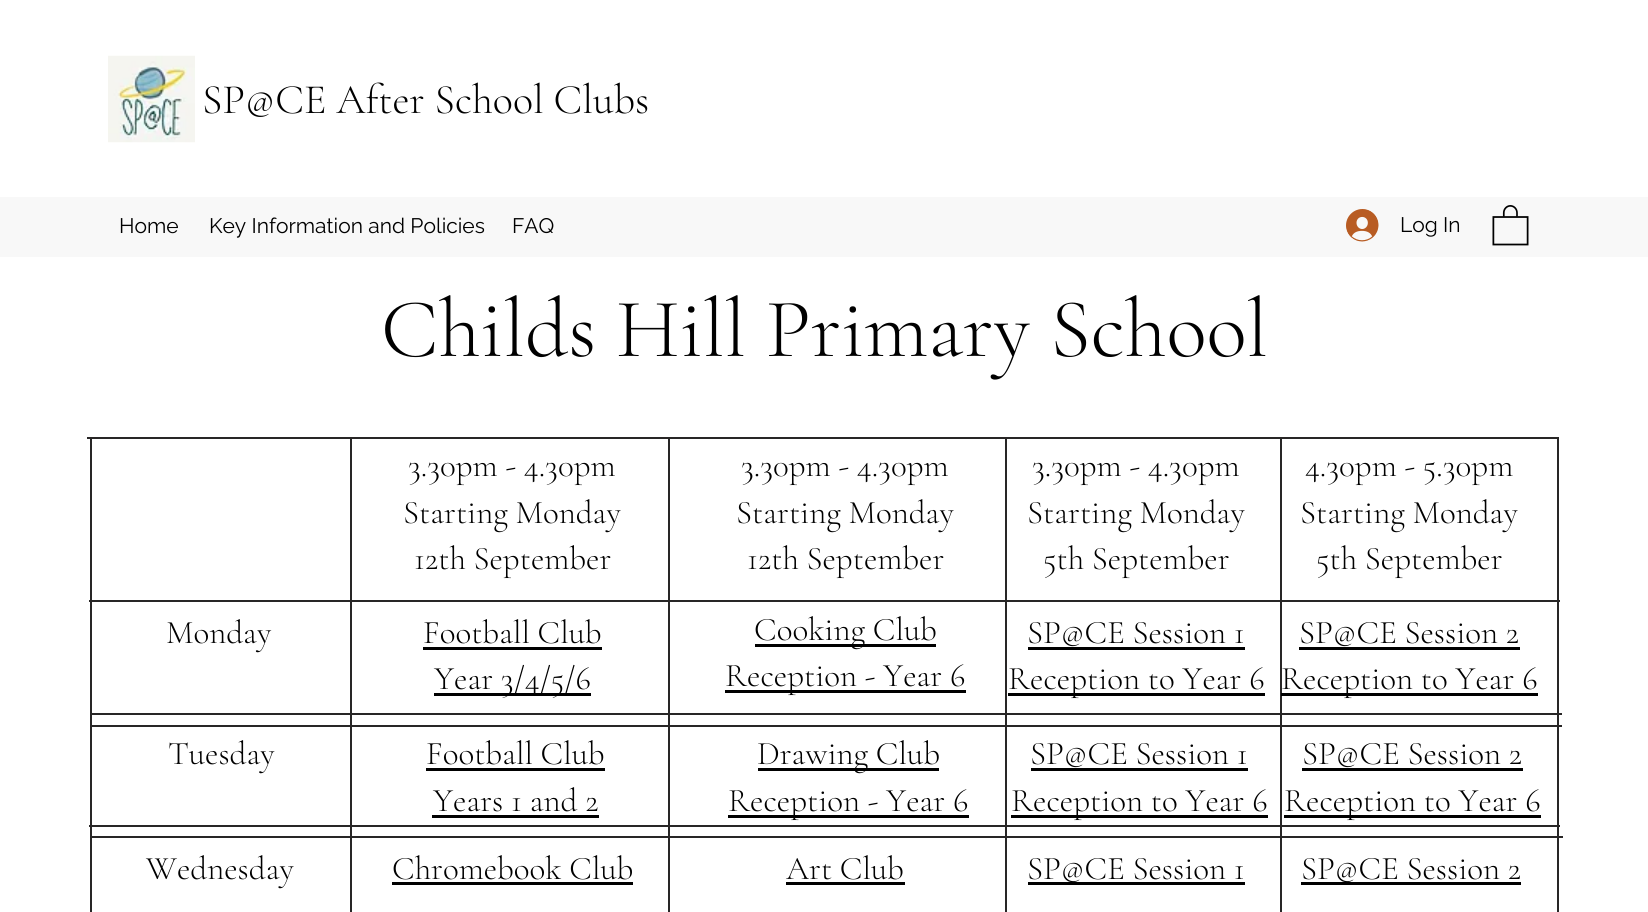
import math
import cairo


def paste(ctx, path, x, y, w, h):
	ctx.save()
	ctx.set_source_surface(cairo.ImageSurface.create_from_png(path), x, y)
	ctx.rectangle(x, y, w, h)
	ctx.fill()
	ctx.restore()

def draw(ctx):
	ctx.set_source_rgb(1, 1, 1)
	ctx.paint()
	paste(ctx, 'media/1.png', 108, 55, 87, 88)
	ctx.select_font_face('Cormorant Garamond Light')
	ctx.set_font_size(42)
	ctx.set_source_rgb(0, 0, 0)
	ctx.move_to(202, 113)
	ctx.show_text('SP@CE After School Clubs')
	ctx.set_source_rgb(0.969, 0.969, 0.969)
	ctx.rectangle(0, 197, 1648, 60)
	ctx.fill()
	ctx.select_font_face('Raleway')
	ctx.set_font_size(21)
	ctx.set_source_rgb(0, 0, 0)
	for x, y, s in [
		(119, 233, 'Home'),
		(209, 233, 'Key Information and Policies'),
		(512, 233, 'FAQ'),
	]:
		ctx.move_to(x, y)
		ctx.show_text(s)
	paste(ctx, 'media/2.png', 1346, 209, 33, 33)
	ctx.move_to(1400, 232)
	ctx.show_text('Log In')
	paste(ctx, 'media/3.png', 1492, 205, 37, 41)
	ctx.select_font_face('Cormorant Garamond Light')
	ctx.set_font_size(84)
	ctx.move_to(381, 356)
	ctx.show_text('Childs Hill Primary School')
	ctx.set_source_rgb(0.157, 0.149, 0.149)
	ctx.rectangle(87, 437, 1472, 2)
	ctx.rectangle(89, 600, 1471, 2)
	ctx.rectangle(90, 713, 1472, 2)
	ctx.rectangle(90, 725, 1472, 2)
	ctx.rectangle(89, 825, 1471, 2)
	ctx.rectangle(90, 437, 2, 475)
	ctx.rectangle(92, 836, 1471, 2)
	ctx.rectangle(350, 437, 2, 475)
	ctx.fill()
	ctx.set_font_size(33)
	ctx.set_source_rgb(0, 0, 0)
	for x, y, s in [
		(408, 476, '3.30pm - 4.30pm'),
		(403, 523, 'Starting Monday'),
		(414, 569, '12th September'),
	]:
		ctx.move_to(x, y)
		ctx.show_text(s)
	ctx.set_source_rgb(0.157, 0.149, 0.149)
	ctx.rectangle(668, 437, 2, 475)
	ctx.fill()
	ctx.set_source_rgb(0, 0, 0)
	for x, y, s in [
		(741, 476, '3.30pm - 4.30pm'),
		(736, 523, 'Starting Monday'),
		(747, 569, '12th September'),
	]:
		ctx.move_to(x, y)
		ctx.show_text(s)
	ctx.set_source_rgb(0.157, 0.149, 0.149)
	ctx.rectangle(1005, 437, 2, 475)
	ctx.fill()
	ctx.set_source_rgb(0, 0, 0)
	for x, y, s in [
		(1032, 476, '3.30pm - 4.30pm'),
		(1027, 523, 'Starting Monday'),
		(1043, 569, '5th September'),
	]:
		ctx.move_to(x, y)
		ctx.show_text(s)
	ctx.set_source_rgb(0.157, 0.149, 0.149)
	ctx.rectangle(1280, 437, 2, 475)
	ctx.fill()
	ctx.set_source_rgb(0, 0, 0)
	for x, y, s in [
		(1305, 476, '4.30pm - 5.30pm'),
		(1300, 523, 'Starting Monday'),
		(1316, 569, '5th September'),
	]:
		ctx.move_to(x, y)
		ctx.show_text(s)
	ctx.set_source_rgb(0.157, 0.149, 0.149)
	ctx.rectangle(1557, 437, 2, 475)
	ctx.fill()
	ctx.set_source_rgb(0, 0, 0)
	ctx.move_to(166, 643)
	ctx.show_text('Monday')
	ctx.move_to(423, 643)
	ctx.show_text('Football Club')
	ctx.rectangle(423, 647, 179, 3)
	ctx.fill()
	ctx.rectangle(434, 693, 157, 3)
	ctx.fill()
	ctx.move_to(434, 689)
	ctx.show_text('Year 3/4/5/6')
	ctx.rectangle(755, 644, 181, 3)
	ctx.fill()
	ctx.move_to(754, 640)
	ctx.show_text('Cooking Club')
	ctx.rectangle(725, 690, 241, 3)
	ctx.fill()
	ctx.move_to(725, 686)
	ctx.show_text('Reception - Year 6')
	ctx.move_to(1027, 643)
	ctx.show_text('SP@CE Session 1')
	ctx.rectangle(1028, 647, 217, 3)
	ctx.fill()
	ctx.rectangle(1008, 693, 257, 3)
	ctx.fill()
	ctx.move_to(1008, 689)
	ctx.show_text('Reception to Year 6')
	ctx.move_to(1299, 643)
	ctx.show_text('SP@CE Session 2')
	ctx.rectangle(1299, 647, 221, 3)
	ctx.fill()
	ctx.rectangle(1281, 693, 257, 3)
	ctx.fill()
	for x, y, s in [
		(1281, 689, 'Reception to Year 6'),
		(168, 764, 'Tuesday'),
		(426, 764, 'Football Club'),
	]:
		ctx.move_to(x, y)
		ctx.show_text(s)
	ctx.rectangle(426, 768, 179, 3)
	ctx.fill()
	ctx.move_to(433, 811)
	ctx.show_text('Years 1 and 2')
	ctx.rectangle(432, 815, 167, 3)
	ctx.fill()
	ctx.rectangle(758, 768, 181, 3)
	ctx.fill()
	ctx.move_to(757, 764)
	ctx.show_text('Drawing Club')
	ctx.rectangle(728, 815, 241, 3)
	ctx.fill()
	ctx.move_to(728, 811)
	ctx.show_text('Reception - Year 6')
	ctx.move_to(1030, 764)
	ctx.show_text('SP@CE Session 1')
	ctx.rectangle(1031, 768, 217, 3)
	ctx.fill()
	ctx.rectangle(1011, 815, 257, 3)
	ctx.fill()
	ctx.move_to(1011, 811)
	ctx.show_text('Reception to Year 6')
	ctx.move_to(1302, 764)
	ctx.show_text('SP@CE Session 2')
	ctx.rectangle(1302, 768, 221, 3)
	ctx.fill()
	ctx.rectangle(1284, 815, 257, 3)
	ctx.fill()
	for x, y, s in [
		(1284, 811, 'Reception to Year 6'),
		(146, 879, 'Wednesday'),
		(392, 879, 'Chromebook Club'),
	]:
		ctx.move_to(x, y)
		ctx.show_text(s)
	ctx.rectangle(392, 882, 241, 3)
	ctx.fill()
	ctx.move_to(786, 879)
	ctx.show_text('Art Club')
	ctx.rectangle(786, 882, 119, 3)
	ctx.fill()
	ctx.rectangle(1028, 882, 217, 3)
	ctx.fill()
	ctx.move_to(1027, 879)
	ctx.show_text('SP@CE Session 1')
	ctx.rectangle(1301, 882, 220, 3)
	ctx.fill()
	ctx.move_to(1301, 879)
	ctx.show_text('SP@CE Session 2')


surface = cairo.ImageSurface(cairo.FORMAT_RGB24, 1648, 912)
ctx = cairo.Context(surface)
options = cairo.FontOptions()
options.set_hint_metrics(cairo.HINT_METRICS_OFF)
options.set_hint_style(cairo.HINT_STYLE_NONE)
ctx.set_font_options(options)
ctx.set_miter_limit(4)
draw(ctx)
surface.write_to_png('image.png')
